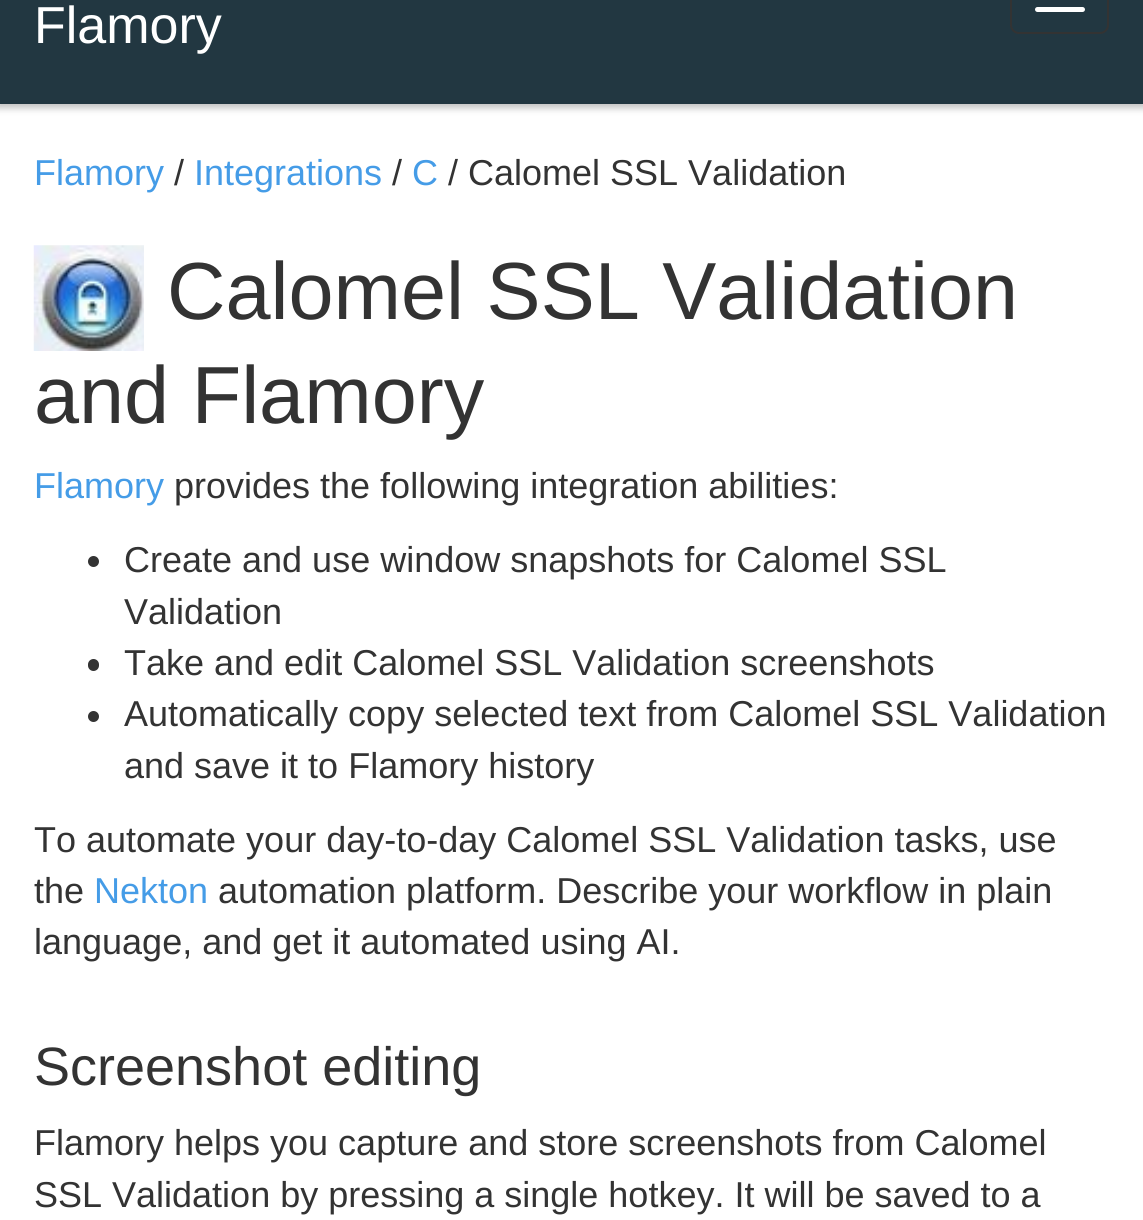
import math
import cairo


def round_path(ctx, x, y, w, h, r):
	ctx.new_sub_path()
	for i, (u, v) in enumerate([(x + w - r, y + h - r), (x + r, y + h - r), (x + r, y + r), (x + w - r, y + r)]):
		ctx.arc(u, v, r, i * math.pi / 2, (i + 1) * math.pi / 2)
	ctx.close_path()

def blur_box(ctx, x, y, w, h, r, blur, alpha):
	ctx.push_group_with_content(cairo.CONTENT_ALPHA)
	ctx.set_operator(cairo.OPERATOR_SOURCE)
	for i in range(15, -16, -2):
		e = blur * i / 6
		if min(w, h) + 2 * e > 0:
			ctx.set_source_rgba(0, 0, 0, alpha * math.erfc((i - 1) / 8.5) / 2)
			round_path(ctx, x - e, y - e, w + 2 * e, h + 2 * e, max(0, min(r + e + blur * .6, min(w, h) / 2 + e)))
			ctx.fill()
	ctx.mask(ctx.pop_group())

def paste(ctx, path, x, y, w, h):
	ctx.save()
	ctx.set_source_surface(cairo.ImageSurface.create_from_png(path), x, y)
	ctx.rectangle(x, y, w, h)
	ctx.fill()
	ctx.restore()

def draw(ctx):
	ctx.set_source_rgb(1, 1, 1)
	ctx.paint()
	ctx.set_source_rgb(0.18, 0.18, 0.18)
	blur_box(ctx, -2, -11, 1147, 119, 0, 3.5, 0.3)
	ctx.set_source_rgb(0.133, 0.216, 0.255)
	ctx.rectangle(0, 0, 1143, 104)
	ctx.fill()
	ctx.select_font_face('Liberation Sans')
	ctx.set_font_size(52)
	ctx.set_source_rgb(1, 1, 1)
	ctx.move_to(34, 43)
	ctx.show_text('Flamory')
	round_path(ctx, 1011, -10, 97, 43, 8)
	ctx.set_source_rgb(0.2, 0.2, 0.2)
	ctx.stroke()
	ctx.set_source_rgb(1, 1, 1)
	round_path(ctx, 1035, 7, 50, 5, 2.5)
	ctx.fill()
	ctx.set_font_size(36)
	ctx.set_source_rgb(0.271, 0.612, 0.906)
	ctx.move_to(34, 185)
	ctx.show_text('Flamory')
	ctx.set_source_rgb(0.2, 0.2, 0.2)
	ctx.move_to(174, 185)
	ctx.show_text('/')
	ctx.set_source_rgb(0.271, 0.612, 0.906)
	ctx.move_to(194, 185)
	ctx.show_text('Integrations')
	ctx.set_source_rgb(0.2, 0.2, 0.2)
	ctx.move_to(392, 185)
	ctx.show_text('/')
	ctx.set_source_rgb(0.271, 0.612, 0.906)
	ctx.move_to(412, 185)
	ctx.show_text('C')
	ctx.set_source_rgb(0.2, 0.2, 0.2)
	ctx.move_to(448, 185)
	ctx.show_text('/ Calomel SSL Validation')
	paste(ctx, 'media/1.png', 33, 245, 111, 106)
	ctx.set_font_size(81)
	ctx.move_to(167, 319)
	ctx.show_text('Calomel SSL Validation')
	ctx.move_to(34, 423)
	ctx.show_text('and Flamory')
	ctx.set_font_size(36)
	ctx.set_source_rgb(0.271, 0.612, 0.906)
	ctx.move_to(34, 498)
	ctx.show_text('Flamory')
	ctx.set_source_rgb(0.2, 0.2, 0.2)
	ctx.move_to(174, 498)
	ctx.show_text('provides the following integration abilities:')
	ctx.new_path()
	ctx.arc(93.5, 561.5, 5.5, 0, 2 * math.pi)
	ctx.fill()
	ctx.move_to(124, 572)
	ctx.show_text('Create and use window snapshots for Calomel SSL')
	ctx.move_to(124, 624)
	ctx.show_text('Validation')
	round_path(ctx, 88, 659, 11, 12, 5.5)
	ctx.fill()
	ctx.move_to(124, 675)
	ctx.show_text('Take and edit Calomel SSL Validation screenshots')
	ctx.new_path()
	ctx.arc(93.5, 716.5, 5.5, 0, 2 * math.pi)
	ctx.fill()
	for x, y, s in [
		(124, 726, 'Automatically copy selected text from Calomel SSL Validation'),
		(124, 778, 'and save it to Flamory history'),
		(34, 852, 'To automate your day-to-day Calomel SSL Validation tasks, use'),
		(34, 903, 'the'),
	]:
		ctx.move_to(x, y)
		ctx.show_text(s)
	ctx.set_source_rgb(0.271, 0.612, 0.906)
	ctx.move_to(94, 903)
	ctx.show_text('Nekton')
	ctx.set_source_rgb(0.2, 0.2, 0.2)
	ctx.move_to(218, 903)
	ctx.show_text('automation platform. Describe your workflow in plain')
	ctx.move_to(34, 954)
	ctx.show_text('language, and get it automated using AI.')
	ctx.set_font_size(54)
	ctx.move_to(34, 1085)
	ctx.show_text('Screenshot editing')
	ctx.set_font_size(36)
	ctx.move_to(34, 1155)
	ctx.show_text('Flamory helps you capture and store screenshots from Calomel')
	ctx.move_to(34, 1207)
	ctx.show_text('SSL Validation by pressing a single hotkey. It will be saved to a')


surface = cairo.ImageSurface(cairo.FORMAT_RGB24, 1143, 1220)
ctx = cairo.Context(surface)
options = cairo.FontOptions()
options.set_hint_metrics(cairo.HINT_METRICS_OFF)
options.set_hint_style(cairo.HINT_STYLE_NONE)
ctx.set_font_options(options)
ctx.set_miter_limit(4)
draw(ctx)
surface.write_to_png('image.png')
